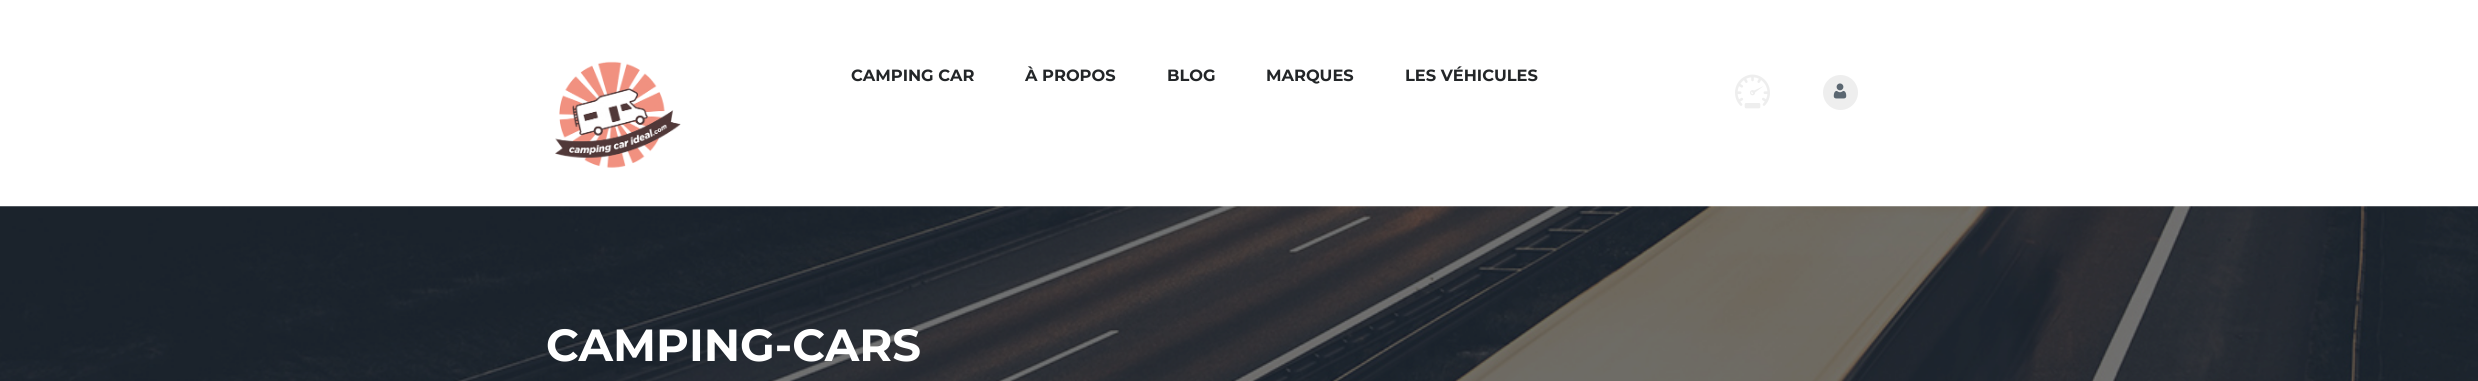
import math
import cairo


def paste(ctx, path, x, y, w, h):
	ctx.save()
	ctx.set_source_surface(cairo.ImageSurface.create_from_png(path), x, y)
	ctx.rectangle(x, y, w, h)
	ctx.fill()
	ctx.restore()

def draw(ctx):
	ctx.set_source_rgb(1, 1, 1)
	ctx.paint()
	paste(ctx, 'media/1.png', 555, 61, 126, 107)
	ctx.select_font_face('Montserrat', cairo.FONT_SLANT_NORMAL, cairo.FONT_WEIGHT_BOLD)
	ctx.set_font_size(16.25)
	ctx.set_source_rgb(0.137, 0.149, 0.157)
	for x, y, s in [
		(851, 81, 'CAMPING CAR'),
		(1025, 81, 'À PROPOS'),
		(1167, 81, 'BLOG'),
		(1266, 81, 'MARQUES'),
		(1405, 81, 'LES VÉHICULES'),
	]:
		ctx.move_to(x, y)
		ctx.show_text(s)
	paste(ctx, 'media/2.png', 1735, 74, 35, 35)
	ctx.set_source_rgb(0.933, 0.933, 0.933)
	ctx.arc(1840.5, 92.5, 17.5, 0, 2 * math.pi)
	ctx.fill()
	paste(ctx, 'media/3.png', 1833, 83, 14, 16)
	paste(ctx, 'media/4.png', 0, 206, 2478, 175)
	ctx.set_font_size(45)
	ctx.set_source_rgb(1, 1, 1)
	ctx.move_to(546, 361)
	ctx.show_text('CAMPING-CARS')


surface = cairo.ImageSurface(cairo.FORMAT_RGB24, 2478, 381)
ctx = cairo.Context(surface)
options = cairo.FontOptions()
options.set_hint_metrics(cairo.HINT_METRICS_OFF)
options.set_hint_style(cairo.HINT_STYLE_NONE)
ctx.set_font_options(options)
ctx.set_miter_limit(4)
draw(ctx)
surface.write_to_png('image.png')
